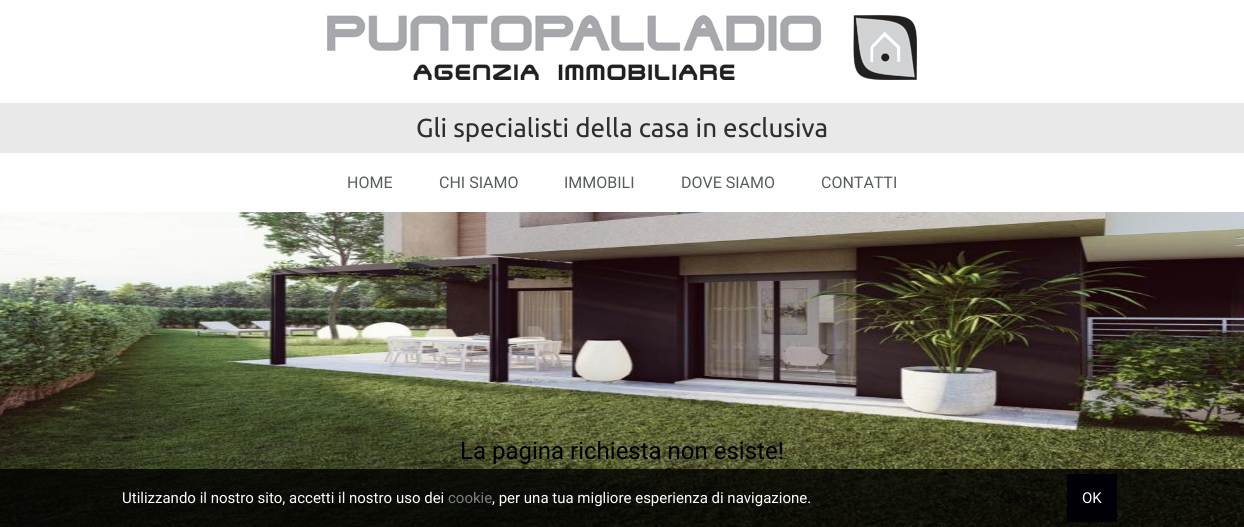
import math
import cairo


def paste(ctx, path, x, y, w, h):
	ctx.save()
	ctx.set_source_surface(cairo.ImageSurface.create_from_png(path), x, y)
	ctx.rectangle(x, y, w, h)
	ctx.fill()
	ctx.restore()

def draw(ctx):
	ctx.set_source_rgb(1, 1, 1)
	ctx.paint()
	paste(ctx, 'media/1.png', 327, 15, 590, 65)
	ctx.set_source_rgb(0.914, 0.914, 0.914)
	ctx.rectangle(0, 103, 1244, 50)
	ctx.fill()
	ctx.select_font_face('Ubuntu')
	ctx.set_font_size(26)
	ctx.set_source_rgb(0.173, 0.184, 0.188)
	ctx.move_to(416, 137)
	ctx.show_text('Gli specialisti della casa in esclusiva')
	ctx.select_font_face('Roboto')
	ctx.set_font_size(16)
	ctx.set_source_rgb(0.341, 0.365, 0.369)
	for x, y, s in [
		(347, 188, 'HOME'),
		(439, 188, 'CHI SIAMO'),
		(564, 188, 'IMMOBILI'),
		(681, 188, 'DOVE SIAMO'),
		(821, 188, 'CONTATTI'),
	]:
		ctx.move_to(x, y)
		ctx.show_text(s)
	paste(ctx, 'media/2.png', 0, 212, 1244, 315)
	ctx.set_source_rgba(0, 0, 0, 0.8)
	ctx.rectangle(0, 469, 1244, 58)
	ctx.fill()
	ctx.set_font_size(15)
	ctx.set_source_rgb(1, 1, 1)
	ctx.move_to(122, 503)
	ctx.show_text('Utilizzando il nostro sito, accetti il nostro uso dei')
	ctx.set_source_rgb(0.486, 0.502, 0.498)
	ctx.move_to(448, 503)
	ctx.show_text('cookie')
	ctx.set_source_rgb(1, 1, 1)
	ctx.move_to(492, 503)
	ctx.show_text(', per una tua migliore esperienza di navigazione.')
	ctx.set_source_rgb(0, 0, 0.027)
	ctx.rectangle(1067, 474, 50, 48)
	ctx.fill()
	ctx.set_source_rgb(1, 1, 1)
	ctx.move_to(1082, 503)
	ctx.show_text('OK')
	ctx.set_font_size(24)
	ctx.set_source_rgb(0, 0, 0.027)
	ctx.move_to(460, 459)
	ctx.show_text('La pagina richiesta non esiste!')


surface = cairo.ImageSurface(cairo.FORMAT_RGB24, 1244, 527)
ctx = cairo.Context(surface)
options = cairo.FontOptions()
options.set_hint_metrics(cairo.HINT_METRICS_OFF)
options.set_hint_style(cairo.HINT_STYLE_NONE)
ctx.set_font_options(options)
ctx.set_miter_limit(4)
draw(ctx)
surface.write_to_png('image.png')
